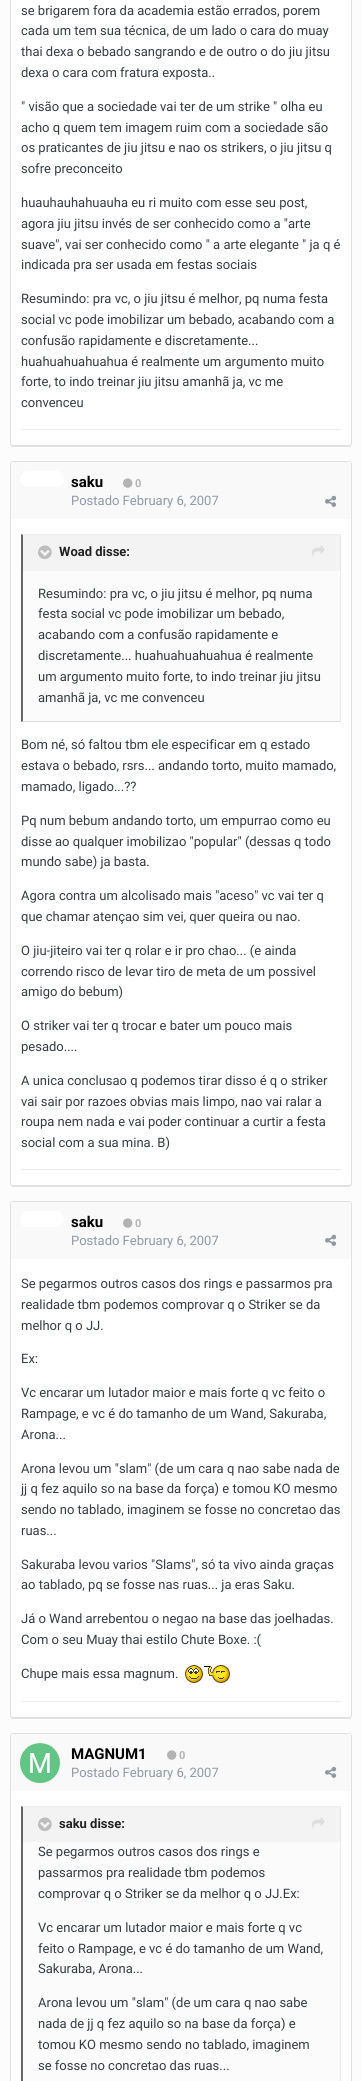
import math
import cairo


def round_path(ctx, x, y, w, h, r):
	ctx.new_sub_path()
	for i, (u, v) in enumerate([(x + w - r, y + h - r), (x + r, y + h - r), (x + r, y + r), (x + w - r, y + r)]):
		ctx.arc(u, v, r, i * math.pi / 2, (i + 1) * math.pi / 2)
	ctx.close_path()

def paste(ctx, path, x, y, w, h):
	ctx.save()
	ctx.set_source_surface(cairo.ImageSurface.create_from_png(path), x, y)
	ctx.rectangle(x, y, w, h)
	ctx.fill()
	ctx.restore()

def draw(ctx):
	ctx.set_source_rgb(0.988, 0.988, 0.988)
	ctx.paint()
	ctx.set_source_rgb(0.89, 0.89, 0.89)
	ctx.new_path()
	ctx.move_to(10, 443)
	ctx.curve_to(10, 445, 11, 447, 13, 447)
	ctx.line_to(349, 447)
	ctx.curve_to(351, 447, 352, 445, 352, 443)
	ctx.curve_to(352, 445, 351, 446, 349, 446)
	ctx.line_to(13, 446)
	ctx.curve_to(11, 446, 10, 445, 10, 443)
	ctx.close_path()
	ctx.fill()
	ctx.set_source_rgb(1, 1, 1)
	round_path(ctx, 10.5, -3.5, 341, 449, 2.5)
	ctx.fill_preserve()
	ctx.set_source_rgb(0.878, 0.878, 0.878)
	ctx.set_line_width(1)
	ctx.stroke()
	ctx.select_font_face('Roboto')
	ctx.set_font_size(13)
	ctx.set_source_rgb(0.208, 0.235, 0.255)
	for x, y, s in [
		(21, 15, 'se brigarem fora da academia estão errados, porem'),
		(21, 35, 'cada um tem sua técnica, de um lado o cara do muay'),
		(21, 56, 'thai dexa o bebado sangrando e de outro o do jiu jitsu'),
		(21, 77, 'dexa o cara com fratura exposta..'),
		(21, 111, '" visão que a sociedade vai ter de um strike " olha eu'),
		(21, 132, 'acho q quem tem imagem ruim com a sociedade são'),
		(21, 152, 'os praticantes de jiu jitsu e nao os strikers, o jiu jitsu q'),
		(21, 173, 'sofre preconceito'),
		(21, 207, 'huauhauhahuauha eu ri muito com esse seu post,'),
		(21, 228, 'agora jiu jitsu invés de ser conhecido como a "arte'),
		(21, 249, 'suave", vai ser conhecido como " a arte elegante " ja q é'),
		(21, 269, 'indicada pra ser usada em festas sociais'),
		(21, 303, 'Resumindo: pra vc, o jiu jitsu é melhor, pq numa festa'),
		(21, 324, 'social vc pode imobilizar um bebado, acabando com a'),
		(21, 345, 'confusão rapidamente e discretamente...'),
		(21, 366, 'huahuahuahuahua é realmente um argumento muito'),
		(21, 386, 'forte, to indo treinar jiu jitsu amanhã ja, vc me'),
		(21, 407, 'convenceu'),
	]:
		ctx.move_to(x, y)
		ctx.show_text(s)
	ctx.set_source_rgb(0.925, 0.925, 0.925)
	ctx.rectangle(21, 429, 320, 1)
	ctx.fill()
	ctx.set_source_rgb(0.89, 0.89, 0.89)
	ctx.new_path()
	ctx.move_to(10, 1183)
	ctx.curve_to(10, 1185, 11, 1187, 13, 1187)
	ctx.line_to(349, 1187)
	ctx.curve_to(351, 1187, 352, 1185, 352, 1183)
	ctx.curve_to(352, 1185, 351, 1186, 349, 1186)
	ctx.line_to(13, 1186)
	ctx.curve_to(11, 1186, 10, 1185, 10, 1183)
	ctx.close_path()
	ctx.fill()
	ctx.set_source_rgb(1, 1, 1)
	round_path(ctx, 10.5, 461.5, 341, 724, 2.5)
	ctx.fill_preserve()
	ctx.set_source_rgb(0.878, 0.878, 0.878)
	ctx.stroke()
	ctx.set_source_rgb(0.973, 0.973, 0.973)
	ctx.rectangle(11, 462, 340, 57)
	ctx.fill()
	ctx.set_source_rgb(1, 1, 1)
	round_path(ctx, 20, 471, 44, 16, 8)
	ctx.fill()
	ctx.select_font_face('Roboto', cairo.FONT_SLANT_NORMAL, cairo.FONT_WEIGHT_BOLD)
	ctx.set_font_size(15)
	ctx.set_source_rgb(0, 0, 0)
	ctx.move_to(71, 487)
	ctx.show_text('saku')
	paste(ctx, 'media/1.png', 123, 478, 10, 10)
	ctx.set_font_size(11)
	ctx.set_source_rgb(0.702, 0.702, 0.702)
	ctx.move_to(135, 487)
	ctx.show_text('0')
	ctx.select_font_face('Roboto')
	ctx.set_font_size(13)
	ctx.set_source_rgb(0.553, 0.604, 0.651)
	ctx.move_to(71, 505)
	ctx.show_text('Postado February 6, 2007')
	paste(ctx, 'media/2.png', 325, 495, 12, 12)
	ctx.set_source_rgb(0.984, 0.984, 0.984)
	ctx.rectangle(23, 571, 317, 150)
	ctx.fill()
	ctx.set_source_rgb(0.929, 0.929, 0.929)
	ctx.new_path()
	ctx.move_to(21, 534)
	ctx.line_to(341, 534)
	ctx.line_to(340, 535)
	ctx.line_to(23, 535)
	ctx.close_path()
	ctx.fill()
	ctx.set_source_rgb(0.91, 0.91, 0.91)
	ctx.rectangle(340, 534, 1, 188)
	ctx.fill()
	ctx.set_source_rgb(0.859, 0.859, 0.859)
	ctx.new_path()
	ctx.move_to(341, 722)
	ctx.line_to(21, 722)
	ctx.line_to(23, 721)
	ctx.line_to(340, 721)
	ctx.close_path()
	ctx.fill()
	ctx.set_source_rgb(0.4, 0.4, 0.4)
	ctx.new_path()
	ctx.move_to(21, 722)
	ctx.line_to(21, 534)
	ctx.line_to(23, 535)
	ctx.line_to(23, 721)
	ctx.close_path()
	ctx.fill()
	ctx.set_source_rgb(0.953, 0.953, 0.953)
	ctx.rectangle(23, 535, 317, 36)
	ctx.fill()
	paste(ctx, 'media/3.png', 38, 545, 14, 15)
	ctx.select_font_face('Roboto', cairo.FONT_SLANT_NORMAL, cairo.FONT_WEIGHT_BOLD)
	ctx.set_source_rgb(0.133, 0.133, 0.133)
	ctx.move_to(59, 556)
	ctx.show_text('Woad disse:')
	paste(ctx, 'media/4.png', 312, 545, 13, 12)
	ctx.select_font_face('Roboto')
	ctx.set_source_rgb(0.208, 0.235, 0.255)
	for x, y, s in [
		(38, 598, 'Resumindo: pra vc, o jiu jitsu é melhor, pq numa'),
		(38, 618, 'festa social vc pode imobilizar um bebado,'),
		(38, 639, 'acabando com a confusão rapidamente e'),
		(38, 660, 'discretamente... huahuahuahuahua é realmente'),
		(38, 681, 'um argumento muito forte, to indo treinar jiu jitsu'),
		(38, 702, 'amanhã ja, vc me convenceu'),
		(21, 749, 'Bom né, só faltou tbm ele especificar em q estado'),
		(21, 770, 'estava o bebado, rsrs... andando torto, muito mamado,'),
		(21, 791, 'mamado, ligado...??'),
		(21, 825, 'Pq num bebum andando torto, um empurrao como eu'),
		(21, 846, 'disse ao qualquer imobilizao "popular" (dessas q todo'),
		(21, 866, 'mundo sabe) ja basta.'),
		(21, 900, 'Agora contra um alcolisado mais "aceso" vc vai ter q'),
		(21, 921, 'que chamar atençao sim vei, quer queira ou nao.'),
		(21, 955, 'O jiu-jiteiro vai ter q rolar e ir pro chao... (e ainda'),
		(21, 976, 'correndo risco de levar tiro de meta de um possivel'),
		(21, 996, 'amigo do bebum)'),
		(21, 1030, 'O striker vai ter q trocar e bater um pouco mais'),
		(21, 1051, 'pesado....'),
		(21, 1085, 'A unica conclusao q podemos tirar disso é q o striker'),
		(21, 1106, 'vai sair por razoes obvias mais limpo, nao vai ralar a'),
		(21, 1126, 'roupa nem nada e vai poder continuar a curtir a festa'),
		(21, 1147, 'social com a sua mina. B)'),
	]:
		ctx.move_to(x, y)
		ctx.show_text(s)
	ctx.set_source_rgb(0.925, 0.925, 0.925)
	ctx.rectangle(21, 1169, 320, 1)
	ctx.fill()
	ctx.set_source_rgb(0.89, 0.89, 0.89)
	ctx.new_path()
	ctx.move_to(10, 1715)
	ctx.curve_to(10, 1717, 11, 1719, 13, 1719)
	ctx.line_to(349, 1719)
	ctx.curve_to(351, 1719, 352, 1717, 352, 1715)
	ctx.curve_to(352, 1717, 351, 1718, 349, 1718)
	ctx.line_to(13, 1718)
	ctx.curve_to(11, 1718, 10, 1717, 10, 1715)
	ctx.close_path()
	ctx.fill()
	ctx.set_source_rgb(1, 1, 1)
	round_path(ctx, 10.5, 1201.5, 341, 516, 2.5)
	ctx.fill_preserve()
	ctx.set_source_rgb(0.878, 0.878, 0.878)
	ctx.stroke()
	ctx.set_source_rgb(0.973, 0.973, 0.973)
	ctx.rectangle(11, 1202, 340, 57)
	ctx.fill()
	ctx.set_source_rgb(1, 1, 1)
	round_path(ctx, 20, 1211, 44, 16, 8)
	ctx.fill()
	ctx.select_font_face('Roboto', cairo.FONT_SLANT_NORMAL, cairo.FONT_WEIGHT_BOLD)
	ctx.set_font_size(15)
	ctx.set_source_rgb(0, 0, 0)
	ctx.move_to(71, 1227)
	ctx.show_text('saku')
	paste(ctx, 'media/1.png', 123, 1218, 10, 10)
	ctx.set_font_size(11)
	ctx.set_source_rgb(0.702, 0.702, 0.702)
	ctx.move_to(135, 1227)
	ctx.show_text('0')
	ctx.select_font_face('Roboto')
	ctx.set_font_size(13)
	ctx.set_source_rgb(0.553, 0.604, 0.651)
	ctx.move_to(71, 1245)
	ctx.show_text('Postado February 6, 2007')
	paste(ctx, 'media/2.png', 325, 1234, 12, 12)
	ctx.set_source_rgb(0.208, 0.235, 0.255)
	for x, y, s in [
		(21, 1288, 'Se pegarmos outros casos dos rings e passarmos pra'),
		(21, 1309, 'realidade tbm podemos comprovar q o Striker se da'),
		(21, 1330, 'melhor q o JJ.'),
		(21, 1363, 'Ex:'),
		(21, 1397, 'Vc encarar um lutador maior e mais forte q vc feito o'),
		(21, 1418, 'Rampage, e vc é do tamanho de um Wand, Sakuraba,'),
		(21, 1439, 'Arona...'),
		(21, 1473, 'Arona levou um "slam" (de um cara q nao sabe nada de'),
		(21, 1493, 'jj q fez aquilo so na base da força) e tomou KO mesmo'),
		(21, 1514, 'sendo no tablado, imaginem se fosse no concretao das'),
		(21, 1535, 'ruas...'),
		(21, 1569, 'Sakuraba levou varios "Slams", só ta vivo ainda graças'),
		(21, 1589, 'ao tablado, pq se fosse nas ruas... ja eras Saku.'),
		(21, 1623, 'Já o Wand arrebentou o negao na base das joelhadas.'),
		(21, 1644, 'Com o seu Muay thai estilo Chute Boxe. :('),
		(21, 1678, 'Chupe mais essa magnum.'),
	]:
		ctx.move_to(x, y)
		ctx.show_text(s)
	paste(ctx, 'media/5.png', 185, 1665, 45, 18)
	ctx.set_source_rgb(0.925, 0.925, 0.925)
	ctx.rectangle(21, 1701, 320, 1)
	ctx.fill()
	ctx.set_source_rgb(1, 1, 1)
	round_path(ctx, 10.5, 1733.5, 341, 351, 2.5)
	ctx.fill_preserve()
	ctx.set_source_rgb(0.878, 0.878, 0.878)
	ctx.stroke()
	ctx.set_source_rgb(0.973, 0.973, 0.973)
	ctx.rectangle(11, 1734, 340, 57)
	ctx.fill()
	ctx.set_source_rgb(1, 1, 1)
	ctx.arc(40, 1763, 20, 0, 2 * math.pi)
	ctx.fill()
	paste(ctx, 'media/6.png', 20, 1743, 40, 40)
	ctx.select_font_face('Roboto', cairo.FONT_SLANT_NORMAL, cairo.FONT_WEIGHT_BOLD)
	ctx.set_font_size(15)
	ctx.set_source_rgb(0, 0, 0)
	ctx.move_to(71, 1759)
	ctx.show_text('MAGNUM1')
	paste(ctx, 'media/1.png', 167, 1750, 10, 10)
	ctx.set_font_size(11)
	ctx.set_source_rgb(0.702, 0.702, 0.702)
	ctx.move_to(179, 1759)
	ctx.show_text('0')
	ctx.select_font_face('Roboto')
	ctx.set_font_size(13)
	ctx.set_source_rgb(0.553, 0.604, 0.651)
	ctx.move_to(71, 1777)
	ctx.show_text('Postado February 6, 2007')
	paste(ctx, 'media/2.png', 325, 1766, 12, 12)
	ctx.set_source_rgb(0.984, 0.984, 0.984)
	ctx.rectangle(23, 1842, 317, 239)
	ctx.fill()
	ctx.set_source_rgb(0.929, 0.929, 0.929)
	ctx.new_path()
	ctx.move_to(21, 1806)
	ctx.line_to(341, 1806)
	ctx.line_to(340, 1807)
	ctx.line_to(23, 1807)
	ctx.close_path()
	ctx.fill()
	ctx.set_source_rgb(0.91, 0.91, 0.91)
	ctx.rectangle(340, 1806, 1, 275)
	ctx.fill()
	ctx.set_source_rgb(0.4, 0.4, 0.4)
	ctx.new_path()
	ctx.move_to(21, 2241)
	ctx.line_to(21, 1806)
	ctx.line_to(23, 1807)
	ctx.line_to(23, 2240)
	ctx.close_path()
	ctx.fill()
	ctx.set_source_rgb(0.953, 0.953, 0.953)
	ctx.rectangle(23, 1807, 317, 35)
	ctx.fill()
	paste(ctx, 'media/3.png', 38, 1817, 14, 15)
	ctx.select_font_face('Roboto', cairo.FONT_SLANT_NORMAL, cairo.FONT_WEIGHT_BOLD)
	ctx.set_source_rgb(0.133, 0.133, 0.133)
	ctx.move_to(59, 1828)
	ctx.show_text('saku disse:')
	paste(ctx, 'media/4.png', 312, 1817, 13, 12)
	ctx.select_font_face('Roboto')
	ctx.set_source_rgb(0.208, 0.235, 0.255)
	for x, y, s in [
		(38, 1856, 'Se pegarmos outros casos dos rings e'),
		(38, 1877, 'passarmos pra realidade tbm podemos'),
		(38, 1898, 'comprovar q o Striker se da melhor q o JJ.Ex:'),
		(38, 1932, 'Vc encarar um lutador maior e mais forte q vc'),
		(38, 1953, 'feito o Rampage, e vc é do tamanho de um Wand,'),
		(38, 1973, 'Sakuraba, Arona...'),
		(38, 2007, 'Arona levou um "slam" (de um cara q nao sabe'),
		(38, 2028, 'nada de jj q fez aquilo so na base da força) e'),
		(38, 2049, 'tomou KO mesmo sendo no tablado, imaginem'),
		(38, 2070, 'se fosse no concretao das ruas...'),
	]:
		ctx.move_to(x, y)
		ctx.show_text(s)


surface = cairo.ImageSurface(cairo.FORMAT_RGB24, 362, 2081)
ctx = cairo.Context(surface)
options = cairo.FontOptions()
options.set_hint_metrics(cairo.HINT_METRICS_OFF)
options.set_hint_style(cairo.HINT_STYLE_NONE)
ctx.set_font_options(options)
ctx.set_miter_limit(4)
draw(ctx)
surface.write_to_png('image.png')
